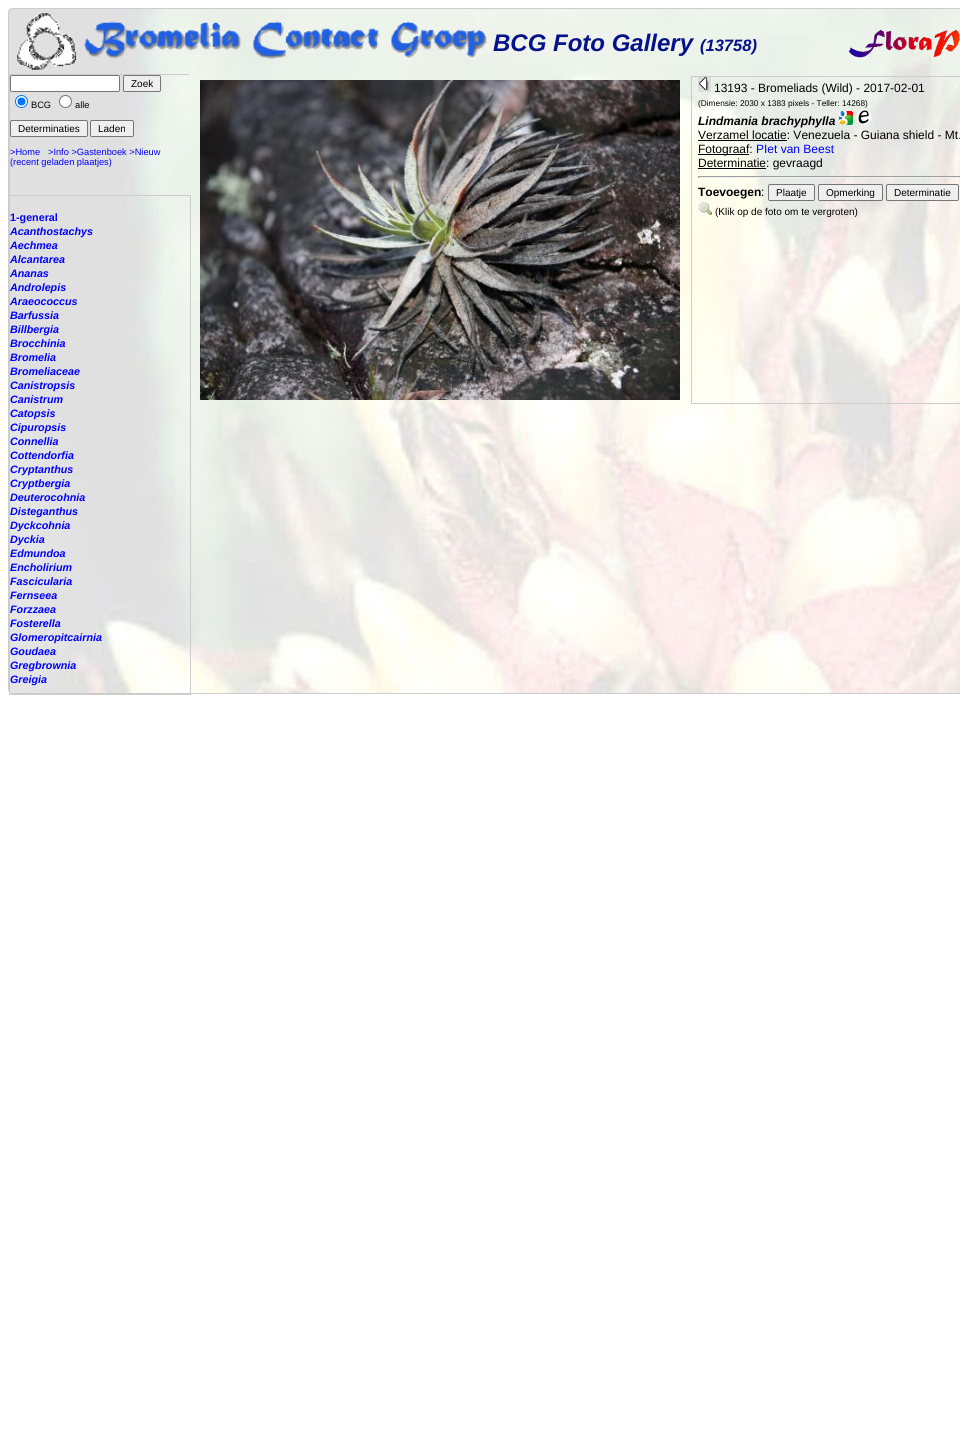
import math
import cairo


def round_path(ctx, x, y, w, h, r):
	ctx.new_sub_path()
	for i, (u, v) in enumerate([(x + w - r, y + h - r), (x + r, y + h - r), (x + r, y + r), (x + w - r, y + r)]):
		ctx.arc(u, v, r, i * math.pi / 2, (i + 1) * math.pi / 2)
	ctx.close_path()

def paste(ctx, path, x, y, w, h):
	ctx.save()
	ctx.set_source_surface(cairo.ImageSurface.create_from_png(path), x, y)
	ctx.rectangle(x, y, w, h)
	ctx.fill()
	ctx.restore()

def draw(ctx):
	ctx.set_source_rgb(1, 1, 1)
	ctx.paint()
	paste(ctx, 'media/1.png', 8, 8, 952, 686)
	round_path(ctx, 8.5, 8.5, 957, 685, 4.5)
	ctx.set_source_rgb(0.8, 0.8, 0.8)
	ctx.set_line_width(1)
	ctx.stroke()
	paste(ctx, 'media/2.png', 17, 13, 470, 57)
	ctx.select_font_face('Liberation Sans', cairo.FONT_SLANT_ITALIC, cairo.FONT_WEIGHT_BOLD)
	ctx.set_font_size(24)
	ctx.set_source_rgb(0.016, 0.067, 0.533)
	ctx.move_to(493, 51)
	ctx.show_text('BCG Foto Gallery')
	ctx.set_font_size(16.5)
	ctx.move_to(700, 51)
	ctx.show_text('(13758)')
	paste(ctx, 'media/3.png', 848, 29, 112, 29)
	ctx.save()
	ctx.rectangle(9, 74, 180, 619)
	ctx.clip()
	ctx.rectangle(9.5, 74.5, 181, 121)
	ctx.set_source_rgb(0.8, 0.8, 0.8)
	ctx.stroke()
	ctx.restore()
	ctx.set_source_rgb(1, 1, 1)
	round_path(ctx, 10.5, 75.5, 109, 16, 1.5)
	ctx.fill_preserve()
	ctx.set_source_rgb(0.463, 0.463, 0.463)
	ctx.stroke()
	ctx.set_source_rgb(0.937, 0.937, 0.937)
	round_path(ctx, 123.5, 75.5, 37, 16, 1.5)
	ctx.fill_preserve()
	ctx.set_source_rgb(0.463, 0.463, 0.463)
	ctx.stroke()
	ctx.select_font_face('Liberation Sans')
	ctx.set_font_size(10)
	ctx.set_source_rgb(0, 0, 0)
	ctx.move_to(131, 87)
	ctx.show_text('Zoek')
	ctx.set_source_rgb(1, 1, 1)
	ctx.new_path()
	ctx.arc(21.5, 101.5, 6, 0, 2 * math.pi)
	ctx.fill_preserve()
	ctx.set_source_rgb(0, 0.459, 1)
	ctx.stroke()
	ctx.arc(21.5, 101.5, 4, 0, 2 * math.pi)
	ctx.fill()
	ctx.set_font_size(9.25)
	ctx.set_source_rgb(0, 0, 0)
	ctx.move_to(31, 108)
	ctx.show_text('BCG')
	ctx.set_source_rgb(1, 1, 1)
	ctx.new_path()
	ctx.arc(65.5, 101.5, 6, 0, 2 * math.pi)
	ctx.fill_preserve()
	ctx.set_source_rgb(0.463, 0.463, 0.463)
	ctx.stroke()
	ctx.set_source_rgb(0, 0, 0)
	ctx.move_to(75, 108)
	ctx.show_text('alle')
	ctx.set_source_rgb(0.937, 0.937, 0.937)
	round_path(ctx, 10.5, 120.5, 77, 16, 1.5)
	ctx.fill_preserve()
	ctx.set_source_rgb(0.463, 0.463, 0.463)
	ctx.stroke()
	ctx.set_font_size(10)
	ctx.set_source_rgb(0, 0, 0)
	ctx.move_to(18, 132)
	ctx.show_text('Determinaties')
	ctx.set_source_rgb(0.937, 0.937, 0.937)
	round_path(ctx, 90.5, 120.5, 43, 16, 1.5)
	ctx.fill_preserve()
	ctx.set_source_rgb(0.463, 0.463, 0.463)
	ctx.stroke()
	ctx.set_source_rgb(0, 0, 0)
	ctx.move_to(98, 132)
	ctx.show_text('Laden')
	ctx.set_font_size(9.25)
	ctx.set_source_rgb(0, 0, 1)
	for x, y, s in [
		(10, 155, '>Home'),
		(48, 155, '>Info >Gastenboek >Nieuw'),
		(10, 165, '(recent geladen plaatjes)'),
	]:
		ctx.move_to(x, y)
		ctx.show_text(s)
	ctx.rectangle(9.5, 195.5, 181, 499)
	ctx.set_source_rgb(0.8, 0.8, 0.8)
	ctx.stroke()
	ctx.select_font_face('Liberation Sans', cairo.FONT_SLANT_NORMAL, cairo.FONT_WEIGHT_BOLD)
	ctx.set_font_size(10.75)
	ctx.set_source_rgb(0, 0, 1)
	ctx.move_to(10, 221)
	ctx.show_text('1-general')
	ctx.select_font_face('Liberation Sans', cairo.FONT_SLANT_ITALIC, cairo.FONT_WEIGHT_BOLD)
	for x, y, s in [
		(10, 235, 'Acanthostachys'),
		(10, 249, 'Aechmea'),
		(10, 263, 'Alcantarea'),
		(10, 277, 'Ananas'),
		(10, 291, 'Androlepis'),
		(10, 305, 'Araeococcus'),
		(10, 319, 'Barfussia'),
		(10, 333, 'Billbergia'),
		(10, 347, 'Brocchinia'),
		(10, 361, 'Bromelia'),
		(10, 375, 'Bromeliaceae'),
		(10, 389, 'Canistropsis'),
		(10, 403, 'Canistrum'),
		(10, 417, 'Catopsis'),
		(10, 431, 'Cipuropsis'),
		(10, 445, 'Connellia'),
		(10, 459, 'Cottendorfia'),
		(10, 473, 'Cryptanthus'),
		(10, 487, 'Cryptbergia'),
		(10, 501, 'Deuterocohnia'),
		(10, 515, 'Disteganthus'),
		(10, 529, 'Dyckcohnia'),
		(10, 543, 'Dyckia'),
		(10, 557, 'Edmundoa'),
		(10, 571, 'Encholirium'),
		(10, 585, 'Fascicularia'),
		(10, 599, 'Fernseea'),
		(10, 613, 'Forzzaea'),
		(10, 627, 'Fosterella'),
		(10, 641, 'Glomeropitcairnia'),
		(10, 655, 'Goudaea'),
		(10, 669, 'Gregbrownia'),
		(10, 683, 'Greigia'),
	]:
		ctx.move_to(x, y)
		ctx.show_text(s)
	paste(ctx, 'media/4.png', 200, 80, 480, 320)
	ctx.rectangle(691.5, 76.5, 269, 327)
	ctx.set_source_rgb(0.8, 0.8, 0.8)
	ctx.stroke()
	paste(ctx, 'media/5.png', 698, 77, 13, 15)
	ctx.select_font_face('Liberation Sans')
	ctx.set_font_size(12)
	ctx.set_source_rgb(0, 0, 0)
	ctx.move_to(714, 92)
	ctx.show_text('13193 - Bromeliads (Wild) - 2017-02-01')
	ctx.set_font_size(8.3)
	ctx.move_to(698, 106)
	ctx.show_text('(Dimensie: 2030 x 1383 pixels - Teller: 14268)')
	ctx.select_font_face('Liberation Sans', cairo.FONT_SLANT_ITALIC, cairo.FONT_WEIGHT_BOLD)
	ctx.set_font_size(12)
	ctx.move_to(698, 125)
	ctx.show_text('Lindmania brachyphylla')
	paste(ctx, 'media/6.png', 839, 111, 14, 14)
	paste(ctx, 'media/7.png', 856, 109, 16, 16)
	ctx.select_font_face('Liberation Sans')
	ctx.move_to(698, 139)
	ctx.show_text('Verzamel locatie: Venezuela - Guiana shield - Mt.')
	ctx.rectangle(698, 140, 89, 1)
	ctx.fill()
	ctx.rectangle(698, 154, 51, 1)
	ctx.fill()
	ctx.move_to(698, 153)
	ctx.show_text('Fotograaf:')
	ctx.set_source_rgb(0, 0, 1)
	ctx.move_to(756, 153)
	ctx.show_text('PIet van Beest')
	ctx.set_source_rgb(0, 0, 0)
	ctx.rectangle(698, 168, 68, 1)
	ctx.fill()
	ctx.move_to(698, 167)
	ctx.show_text('Determinatie: gevraagd')
	ctx.set_source_rgb(0.624, 0.624, 0.624)
	ctx.rectangle(698, 176, 262, 1)
	ctx.fill()
	ctx.set_source_rgb(0.933, 0.933, 0.933)
	ctx.rectangle(698, 177, 262, 1)
	ctx.fill()
	ctx.set_source_rgb(0.624, 0.624, 0.624)
	ctx.rectangle(698, 176, 1, 2)
	ctx.fill()
	ctx.select_font_face('Liberation Sans', cairo.FONT_SLANT_NORMAL, cairo.FONT_WEIGHT_BOLD)
	ctx.set_source_rgb(0, 0, 0)
	ctx.move_to(698, 196)
	ctx.show_text('Toevoegen')
	ctx.select_font_face('Liberation Sans')
	ctx.move_to(761, 196)
	ctx.show_text(':')
	ctx.set_source_rgb(0.937, 0.937, 0.937)
	round_path(ctx, 768.5, 184.5, 46, 16, 1.5)
	ctx.fill_preserve()
	ctx.set_source_rgb(0.463, 0.463, 0.463)
	ctx.stroke()
	ctx.set_font_size(10)
	ctx.set_source_rgb(0, 0, 0)
	ctx.move_to(776, 196)
	ctx.show_text('Plaatje')
	ctx.set_source_rgb(0.937, 0.937, 0.937)
	round_path(ctx, 818.5, 184.5, 64, 16, 1.5)
	ctx.fill_preserve()
	ctx.set_source_rgb(0.463, 0.463, 0.463)
	ctx.stroke()
	ctx.set_source_rgb(0, 0, 0)
	ctx.move_to(826, 196)
	ctx.show_text('Opmerking')
	ctx.set_source_rgb(0.937, 0.937, 0.937)
	round_path(ctx, 886.5, 184.5, 72, 16, 1.5)
	ctx.fill_preserve()
	ctx.set_source_rgb(0.463, 0.463, 0.463)
	ctx.stroke()
	ctx.set_source_rgb(0, 0, 0)
	ctx.move_to(894, 196)
	ctx.show_text('Determinatie')
	paste(ctx, 'media/8.png', 698, 201, 14, 14)
	ctx.move_to(715, 215)
	ctx.show_text('(Klik op de foto om te vergroten)')


surface = cairo.ImageSurface(cairo.FORMAT_RGB24, 960, 1429)
ctx = cairo.Context(surface)
options = cairo.FontOptions()
options.set_hint_metrics(cairo.HINT_METRICS_OFF)
options.set_hint_style(cairo.HINT_STYLE_NONE)
ctx.set_font_options(options)
ctx.set_miter_limit(4)
draw(ctx)
surface.write_to_png('image.png')
